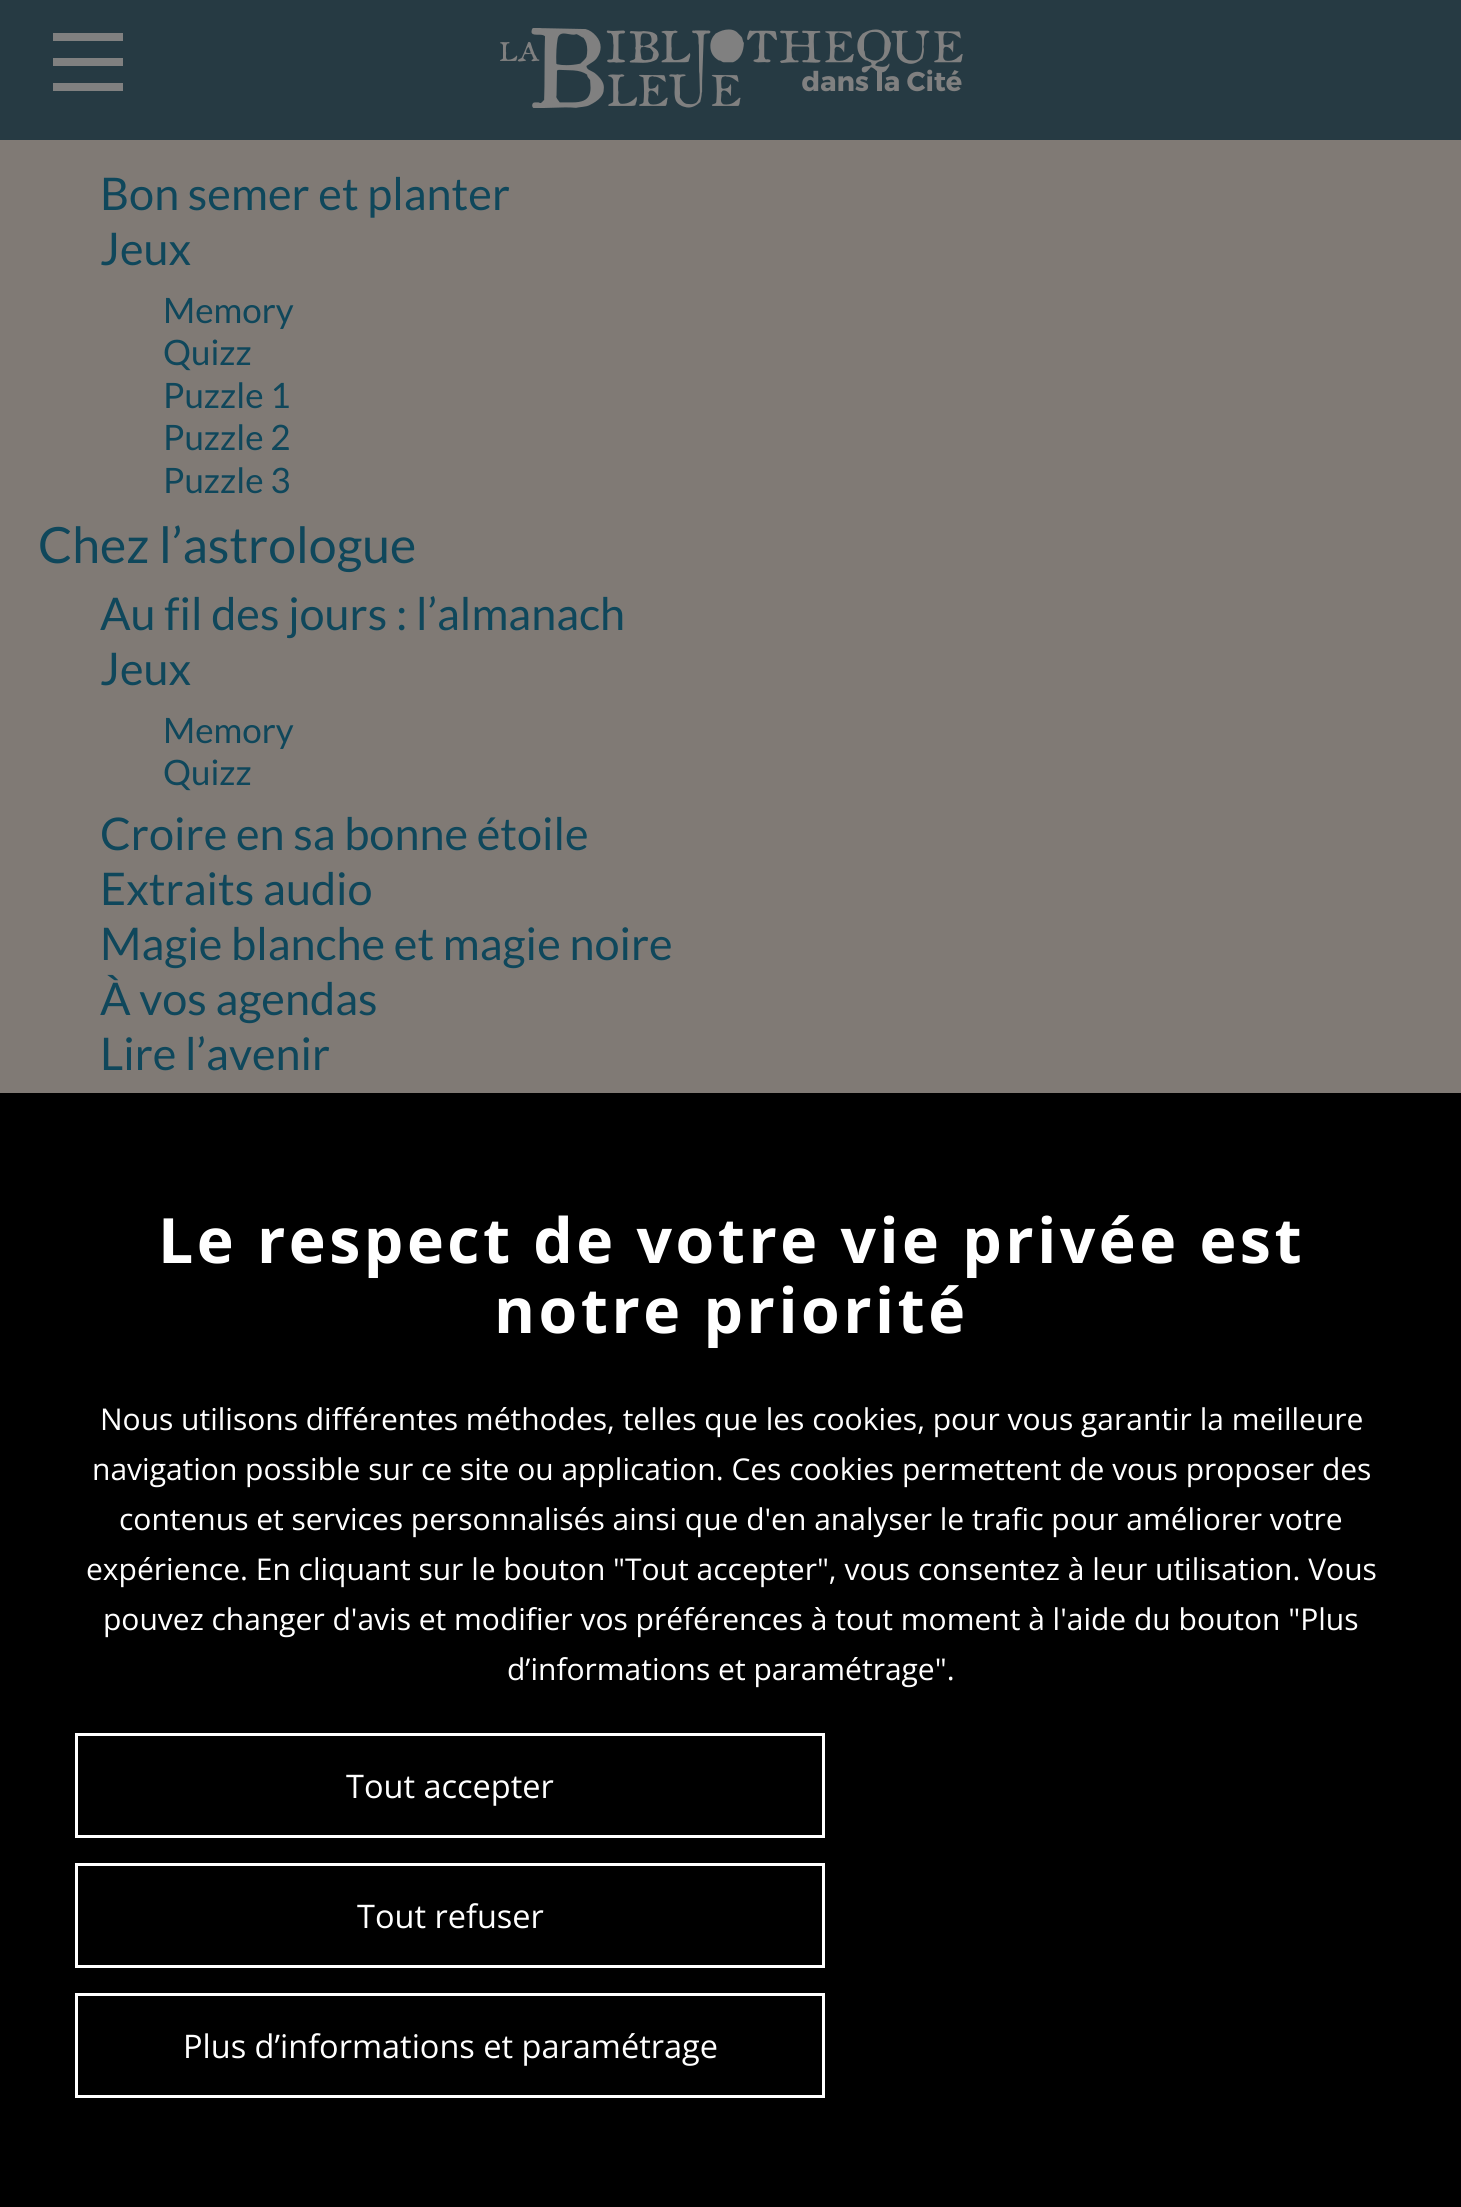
import math
import cairo


def write_spaced(ctx, x, y, s, letter, word):
	ctx.move_to(x, y)
	for ch in s:
		ctx.show_text(ch)
		ctx.rel_move_to(letter + word * (ch == ' '), 0)

def paste(ctx, path, x, y, w, h):
	ctx.save()
	ctx.set_source_surface(cairo.ImageSurface.create_from_png(path), x, y)
	ctx.rectangle(x, y, w, h)
	ctx.fill()
	ctx.restore()

def draw(ctx):
	ctx.set_source_rgb(0.502, 0.478, 0.459)
	ctx.paint()
	ctx.set_source_rgba(0, 0.125, 0.184, 0.7)
	ctx.rectangle(0, 0, 1461, 140)
	ctx.fill()
	ctx.set_source_rgb(0.502, 0.502, 0.502)
	ctx.rectangle(53, 33, 70, 8)
	ctx.rectangle(53, 58, 70, 8)
	ctx.rectangle(53, 83, 70, 8)
	ctx.fill()
	paste(ctx, 'media/1.png', 500, 28, 463, 80)
	ctx.select_font_face('Lato')
	ctx.set_font_size(45)
	ctx.set_source_rgb(0.059, 0.278, 0.357)
	ctx.move_to(100, 210)
	ctx.show_text('Bon semer et planter')
	ctx.move_to(100, 265)
	ctx.show_text('Jeux')
	ctx.set_font_size(35)
	for x, y, s in [
		(163, 323, 'Memory'),
		(163, 365, 'Quizz'),
		(163, 408, 'Puzzle 1'),
		(163, 450, 'Puzzle 2'),
		(163, 493, 'Puzzle 3'),
	]:
		ctx.move_to(x, y)
		ctx.show_text(s)
	ctx.set_font_size(50)
	ctx.move_to(38, 563)
	ctx.show_text('Chez l’astrologue')
	ctx.set_font_size(45)
	ctx.move_to(100, 630)
	ctx.show_text('Au fil des jours : l’almanach')
	ctx.move_to(100, 685)
	ctx.show_text('Jeux')
	ctx.set_font_size(35)
	ctx.move_to(163, 743)
	ctx.show_text('Memory')
	ctx.move_to(163, 785)
	ctx.show_text('Quizz')
	ctx.set_font_size(45)
	for x, y, s in [
		(100, 850, 'Croire en sa bonne étoile'),
		(100, 905, 'Extraits audio'),
		(100, 960, 'Magie blanche et magie noire'),
		(100, 1015, 'À vos agendas'),
		(100, 1070, 'Lire l’avenir'),
	]:
		ctx.move_to(x, y)
		ctx.show_text(s)
	ctx.set_source_rgb(0, 0, 0)
	ctx.rectangle(0, 1093, 1461, 1114)
	ctx.fill()
	ctx.select_font_face('Open Sans', cairo.FONT_SLANT_NORMAL, cairo.FONT_WEIGHT_BOLD)
	ctx.set_font_size(62.5)
	ctx.set_source_rgb(1, 1, 1)
	write_spaced(ctx, 158, 1263, 'Le respect de votre vie privée est', 3.5, 0)
	write_spaced(ctx, 494, 1333, 'notre priorité', 3.5, 0)
	ctx.select_font_face('Open Sans')
	ctx.set_font_size(30)
	for x, y, s in [
		(100, 1430, 'Nous utilisons différentes méthodes, telles que les cookies, pour vous garantir la meilleure'),
		(92, 1480, 'navigation possible sur ce site ou application. Ces cookies permettent de vous proposer des'),
		(119, 1530, 'contenus et services personnalisés ainsi que d\'en analyser le trafic pour améliorer votre'),
		(86, 1580, 'expérience. En cliquant sur le bouton "Tout accepter", vous consentez à leur utilisation. Vous'),
		(103, 1630, 'pouvez changer d\'avis et modifier vos préférences à tout moment à l\'aide du bouton "Plus'),
		(507, 1680, 'd’informations et paramétrage".'),
	]:
		ctx.move_to(x, y)
		ctx.show_text(s)
	ctx.rectangle(76.5, 1734.5, 747, 102)
	ctx.set_line_width(3)
	ctx.stroke()
	ctx.set_font_size(32.5)
	ctx.move_to(346, 1798)
	ctx.show_text('Tout accepter')
	ctx.rectangle(76.5, 1864.5, 747, 102)
	ctx.stroke()
	ctx.move_to(357, 1928)
	ctx.show_text('Tout refuser')
	ctx.rectangle(76.5, 1994.5, 747, 102)
	ctx.stroke()
	ctx.move_to(183, 2058)
	ctx.show_text('Plus d’informations et paramétrage')


surface = cairo.ImageSurface(cairo.FORMAT_RGB24, 1461, 2207)
ctx = cairo.Context(surface)
options = cairo.FontOptions()
options.set_hint_metrics(cairo.HINT_METRICS_OFF)
options.set_hint_style(cairo.HINT_STYLE_NONE)
ctx.set_font_options(options)
ctx.set_miter_limit(4)
draw(ctx)
surface.write_to_png('image.png')
